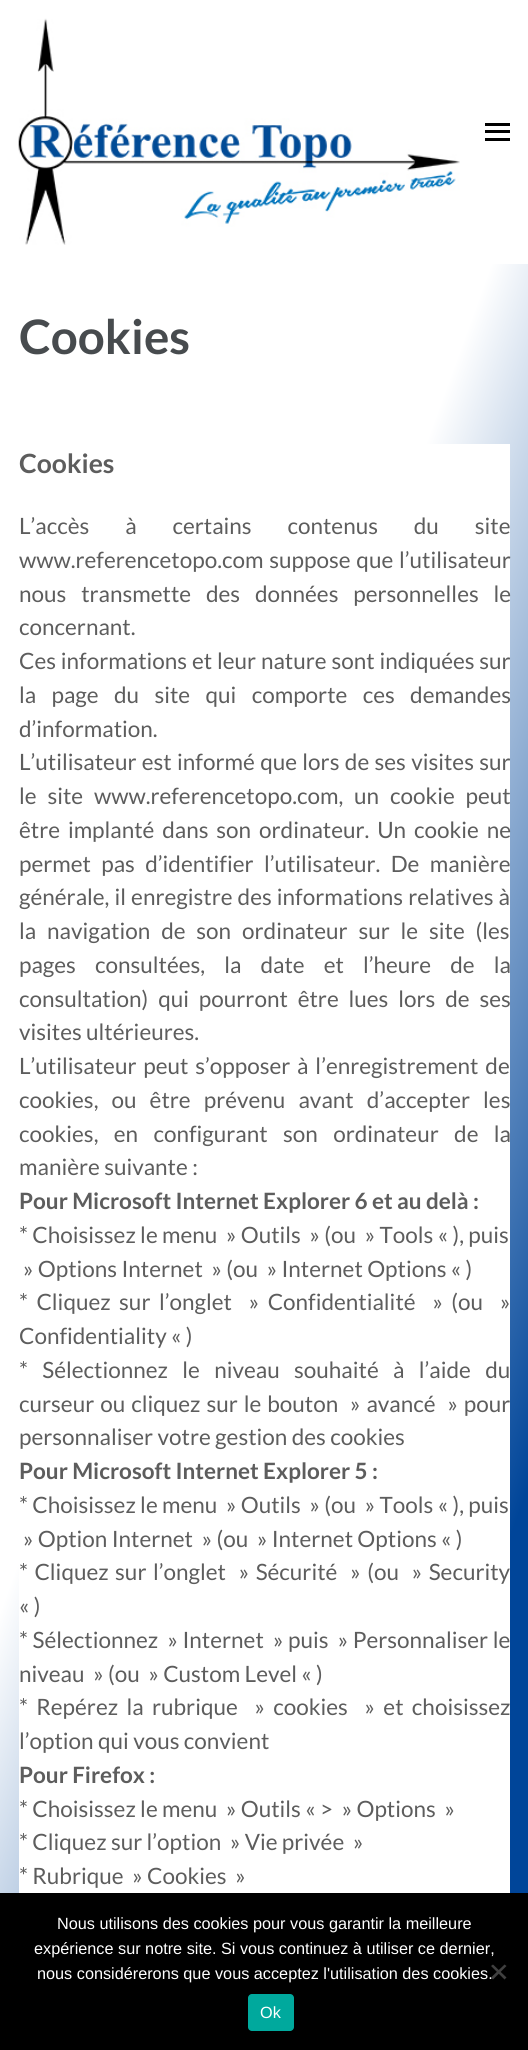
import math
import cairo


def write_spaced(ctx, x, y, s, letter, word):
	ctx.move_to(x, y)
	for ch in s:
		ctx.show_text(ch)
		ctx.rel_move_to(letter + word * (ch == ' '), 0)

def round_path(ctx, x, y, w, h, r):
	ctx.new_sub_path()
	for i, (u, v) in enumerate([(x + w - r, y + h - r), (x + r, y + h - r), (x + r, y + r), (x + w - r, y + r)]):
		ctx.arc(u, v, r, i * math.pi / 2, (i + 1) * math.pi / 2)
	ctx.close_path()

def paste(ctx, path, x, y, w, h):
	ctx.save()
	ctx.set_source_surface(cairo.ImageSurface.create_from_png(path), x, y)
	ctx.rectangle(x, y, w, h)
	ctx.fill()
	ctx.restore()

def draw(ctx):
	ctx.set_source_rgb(1, 1, 1)
	ctx.paint()
	gradient = cairo.LinearGradient(-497, 1366, 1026, 1921)
	gradient.add_color_stop_rgba(0.34, 1, 1, 1, 1)
	gradient.add_color_stop_rgba(0.62, 0, 0.271, 0.6, 1)
	ctx.set_source(gradient)
	ctx.rectangle(0, 264, 528, 1629)
	ctx.fill()
	paste(ctx, 'media/1.png', 18, 18, 442, 227)
	ctx.set_source_rgb(0, 0, 0)
	ctx.rectangle(485, 123, 25, 3)
	ctx.rectangle(485, 130, 25, 3)
	ctx.rectangle(485, 138, 25, 3)
	ctx.fill()
	ctx.select_font_face('Lato', cairo.FONT_SLANT_NORMAL, cairo.FONT_WEIGHT_BOLD)
	ctx.set_font_size(47.5)
	ctx.set_source_rgb(0.278, 0.294, 0.306)
	ctx.move_to(19, 354)
	ctx.show_text('Cookies')
	ctx.set_source_rgb(1, 1, 1)
	ctx.rectangle(19, 444, 491, 1449)
	ctx.fill()
	ctx.set_font_size(26.5)
	ctx.set_source_rgb(0.365, 0.365, 0.365)
	ctx.move_to(19, 473)
	ctx.show_text('Cookies')
	ctx.select_font_face('Lato')
	ctx.set_font_size(22.5)
	write_spaced(ctx, 19, 534, 'L’accès à certains contenus du site', 0, 31.5)
	write_spaced(ctx, 19, 568, 'www.referencetopo.com suppose que l’utilisateur', 0, 1.5)
	write_spaced(ctx, 19, 602, 'nous transmette des données personnelles le', 0, 10.5)
	ctx.move_to(19, 635)
	ctx.show_text('concernant.')
	write_spaced(ctx, 19, 669, 'Ces informations et leur nature sont indiquées sur', 0, 0.5)
	write_spaced(ctx, 19, 703, 'la page du site qui comporte ces demandes', 0, 11)
	ctx.move_to(19, 737)
	ctx.show_text('d’information.')
	write_spaced(ctx, 19, 770, 'L’utilisateur est informé que lors de ses visites sur', 0, 1)
	write_spaced(ctx, 19, 804, 'le site www.referencetopo.com, un cookie peut', 0, 6.5)
	write_spaced(ctx, 19, 838, 'être implanté dans son ordinateur. Un cookie ne', 0, 3.5)
	write_spaced(ctx, 19, 872, 'permet pas d’identifier l’utilisateur. De manière', 0, 6)
	write_spaced(ctx, 19, 905, 'générale, il enregistre des informations relatives à', 0, 0.75)
	write_spaced(ctx, 19, 939, 'la navigation de son ordinateur sur le site (les', 0, 6.5)
	write_spaced(ctx, 19, 973, 'pages consultées, la date et l’heure de la', 0, 14.75)
	write_spaced(ctx, 19, 1007, 'consultation) qui pourront être lues lors de ses', 0, 5.5)
	ctx.move_to(19, 1040)
	ctx.show_text('visites ultérieures.')
	write_spaced(ctx, 19, 1074, 'L’utilisateur peut s’opposer à l’enregistrement de', 0, 2.5)
	write_spaced(ctx, 19, 1108, 'cookies, ou être prévenu avant d’accepter les', 0, 8.75)
	write_spaced(ctx, 19, 1142, 'cookies, en configurant son ordinateur de la', 0, 11)
	ctx.move_to(19, 1175)
	ctx.show_text('manière suivante :')
	ctx.select_font_face('Lato', cairo.FONT_SLANT_NORMAL, cairo.FONT_WEIGHT_BOLD)
	ctx.move_to(19, 1209)
	ctx.show_text('Pour Microsoft Internet Explorer 6 et au delà :')
	ctx.select_font_face('Lato')
	ctx.move_to(19, 1243)
	ctx.show_text('* Choisissez le menu  » Outils  » (ou  » Tools « ), puis')
	ctx.move_to(23, 1277)
	ctx.show_text('» Options Internet  » (ou  » Internet Options « )')
	write_spaced(ctx, 19, 1310, '* Cliquez sur l’onglet  » Confidentialité  » (ou  »', 0, 4.1)
	ctx.move_to(19, 1344)
	ctx.show_text('Confidentiality « )')
	write_spaced(ctx, 19, 1378, '* Sélectionnez le niveau souhaité à l’aide du', 0, 10)
	write_spaced(ctx, 19, 1412, 'curseur ou cliquez sur le bouton  » avancé  » pour', 0, 1.6)
	ctx.move_to(19, 1445)
	ctx.show_text('personnaliser votre gestion des cookies')
	ctx.select_font_face('Lato', cairo.FONT_SLANT_NORMAL, cairo.FONT_WEIGHT_BOLD)
	ctx.move_to(19, 1479)
	ctx.show_text('Pour Microsoft Internet Explorer 5 :')
	ctx.select_font_face('Lato')
	ctx.move_to(19, 1513)
	ctx.show_text('* Choisissez le menu  » Outils  » (ou  » Tools « ), puis')
	ctx.move_to(23, 1547)
	ctx.show_text('» Option Internet  » (ou  » Internet Options « )')
	write_spaced(ctx, 19, 1580, '* Cliquez sur l’onglet  » Sécurité  » (ou  » Security', 0, 2.1)
	ctx.move_to(19, 1614)
	ctx.show_text('« )')
	write_spaced(ctx, 19, 1648, '* Sélectionnez  » Internet  » puis  » Personnaliser le', 0, 0.25)
	ctx.move_to(19, 1682)
	ctx.show_text('niveau  » (ou  » Custom Level « )')
	write_spaced(ctx, 19, 1715, '* Repérez la rubrique  » cookies  » et choisissez', 0, 4)
	ctx.move_to(19, 1749)
	ctx.show_text('l’option qui vous convient')
	ctx.select_font_face('Lato', cairo.FONT_SLANT_NORMAL, cairo.FONT_WEIGHT_BOLD)
	ctx.move_to(19, 1783)
	ctx.show_text('Pour Firefox :')
	ctx.select_font_face('Lato')
	for x, y, s in [
		(19, 1817, '* Choisissez le menu  » Outils « >  » Options  »'),
		(19, 1850, '* Cliquez sur l’option  » Vie privée  »'),
		(19, 1884, '* Rubrique  » Cookies  »'),
	]:
		ctx.move_to(x, y)
		ctx.show_text(s)
	ctx.set_source_rgb(0, 0, 0)
	ctx.rectangle(0, 1893, 528, 157)
	ctx.fill()
	ctx.select_font_face('Liberation Sans')
	ctx.set_font_size(16.25)
	ctx.set_source_rgb(1, 1, 1)
	for x, y, s in [
		(57, 1929, 'Nous utilisons des cookies pour vous garantir la meilleure'),
		(34, 1954, 'expérience sur notre site. Si vous continuez à utiliser ce dernier,'),
		(37, 1979, 'nous considérerons que vous acceptez l\'utilisation des cookies.'),
	]:
		ctx.move_to(x, y)
		ctx.show_text(s)
	ctx.set_source_rgb(0.251, 0.251, 0.251)
	ctx.new_path()
	ctx.move_to(504.5, 1964.5)
	ctx.line_to(506.5, 1966)
	ctx.line_to(493, 1979.5)
	ctx.line_to(491, 1977.5)
	ctx.close_path()
	ctx.fill()
	ctx.new_path()
	ctx.move_to(491, 1966)
	ctx.line_to(493, 1964.5)
	ctx.line_to(506.5, 1977.5)
	ctx.line_to(504.5, 1979.5)
	ctx.close_path()
	ctx.fill()
	ctx.set_source_rgb(0, 0.663, 0.616)
	round_path(ctx, 248, 1994, 46, 37, 4)
	ctx.fill()
	ctx.set_source_rgb(1, 1, 1)
	ctx.move_to(260, 2018)
	ctx.show_text('Ok')


surface = cairo.ImageSurface(cairo.FORMAT_RGB24, 528, 2050)
ctx = cairo.Context(surface)
options = cairo.FontOptions()
options.set_hint_metrics(cairo.HINT_METRICS_OFF)
options.set_hint_style(cairo.HINT_STYLE_NONE)
ctx.set_font_options(options)
ctx.set_miter_limit(4)
draw(ctx)
surface.write_to_png('image.png')
